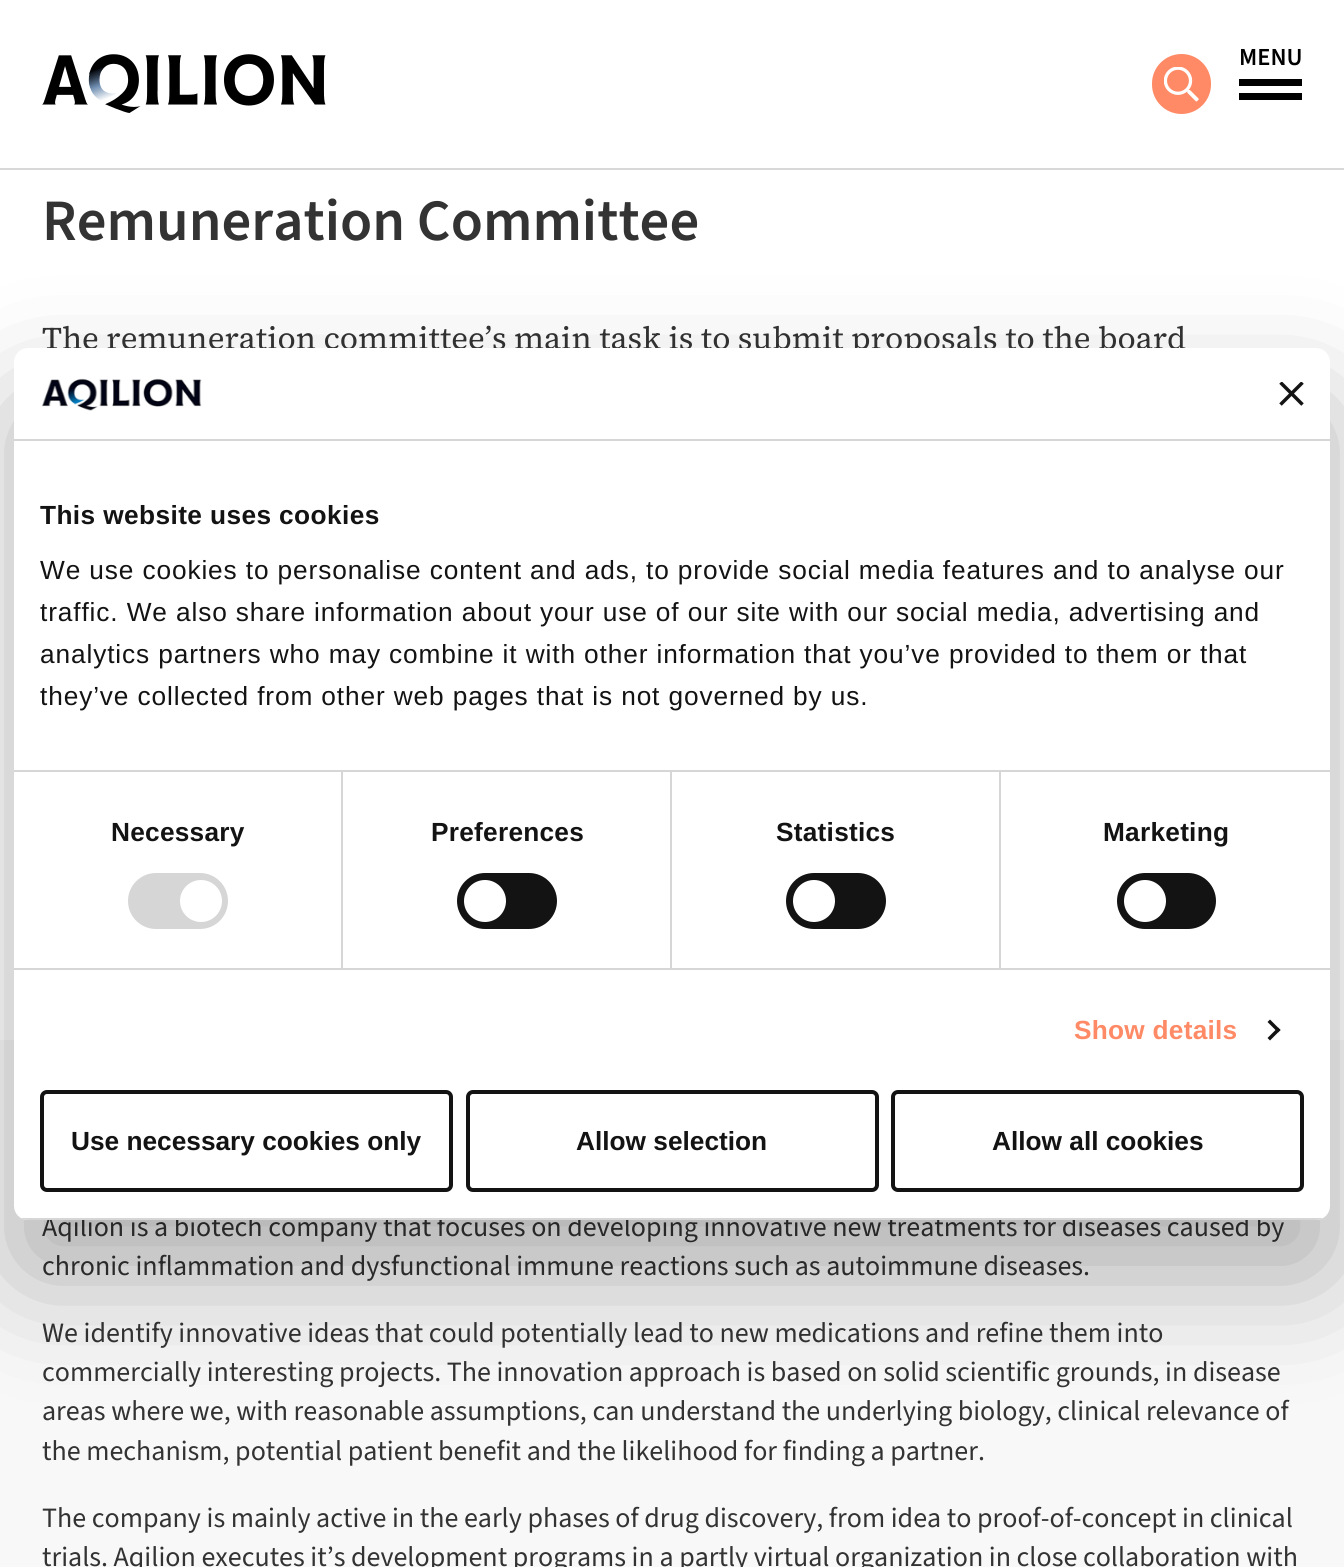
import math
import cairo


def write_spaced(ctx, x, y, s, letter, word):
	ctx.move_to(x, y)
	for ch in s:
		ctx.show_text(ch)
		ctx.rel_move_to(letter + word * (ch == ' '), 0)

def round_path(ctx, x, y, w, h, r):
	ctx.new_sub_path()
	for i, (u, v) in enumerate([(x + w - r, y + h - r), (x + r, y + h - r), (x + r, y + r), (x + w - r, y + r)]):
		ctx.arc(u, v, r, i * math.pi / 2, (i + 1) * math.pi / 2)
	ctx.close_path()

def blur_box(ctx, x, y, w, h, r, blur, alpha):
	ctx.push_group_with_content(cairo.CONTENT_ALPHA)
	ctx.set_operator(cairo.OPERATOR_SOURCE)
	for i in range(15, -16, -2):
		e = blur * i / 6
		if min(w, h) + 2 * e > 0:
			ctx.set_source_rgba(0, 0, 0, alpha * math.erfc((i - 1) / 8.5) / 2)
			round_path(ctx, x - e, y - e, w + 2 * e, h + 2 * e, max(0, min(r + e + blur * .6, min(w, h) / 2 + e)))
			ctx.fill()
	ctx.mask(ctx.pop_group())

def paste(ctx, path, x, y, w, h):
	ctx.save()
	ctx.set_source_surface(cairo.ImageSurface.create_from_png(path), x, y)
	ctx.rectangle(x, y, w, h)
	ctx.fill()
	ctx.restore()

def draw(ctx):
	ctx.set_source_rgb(1, 1, 1)
	ctx.paint()
	ctx.set_source_rgb(0.847, 0.847, 0.847)
	ctx.rectangle(0, 168, 1344, 2)
	ctx.fill()
	paste(ctx, 'media/1.png', 42, 54, 284, 59)
	ctx.set_source_rgb(1, 0.541, 0.396)
	round_path(ctx, 1152, 54, 59, 60, 29.5)
	ctx.fill()
	paste(ctx, 'media/2.png', 1164, 67, 35, 35)
	ctx.select_font_face('Source Sans 3 SemiBold')
	ctx.set_font_size(24.5)
	ctx.set_source_rgb(0, 0, 0)
	ctx.move_to(1239, 65)
	ctx.show_text('MENU')
	ctx.rectangle(1239, 79, 63, 7)
	ctx.fill()
	ctx.rectangle(1239, 93, 63, 7)
	ctx.fill()
	ctx.set_font_size(58.7)
	ctx.set_source_rgb(0.2, 0.2, 0.2)
	ctx.move_to(42, 240)
	ctx.show_text('Remuneration Committee')
	ctx.select_font_face('Source Serif 4')
	ctx.set_font_size(31.5)
	ctx.move_to(42, 349)
	ctx.show_text('The remuneration committee’s main task is to submit proposals to the board')
	ctx.set_source_rgb(0.969, 0.969, 0.969)
	ctx.rectangle(0, 1040, 1344, 527)
	ctx.fill()
	ctx.select_font_face('Source Sans 3')
	ctx.set_font_size(28)
	ctx.set_source_rgb(0.2, 0.2, 0.2)
	for x, y, s in [
		(42, 1236, 'Aqilion is a biotech company that focuses on developing innovative new treatments for diseases caused by'),
		(42, 1275, 'chronic inflammation and dysfunctional immune reactions such as autoimmune diseases.'),
		(42, 1342, 'We identify innovative ideas that could potentially lead to new medications and refine them into'),
		(42, 1381, 'commercially interesting projects. The innovation approach is based on solid scientific grounds, in disease'),
		(42, 1420, 'areas where we, with reasonable assumptions, can understand the underlying biology, clinical relevance of'),
		(42, 1460, 'the mechanism, potential patient benefit and the likelihood for finding a partner.'),
		(42, 1527, 'The company is mainly active in the early phases of drug discovery, from idea to proof-of-concept in clinical'),
		(42, 1566, 'trials. Aqilion executes it’s development programs in a partly virtual organization in close collaboration with'),
	]:
		ctx.move_to(x, y)
		ctx.show_text(s)
	ctx.set_source_rgb(0, 0, 0)
	blur_box(ctx, 14, 404, 1316, 872, 14, 59.5, 0.3)
	ctx.set_source_rgb(1, 1, 1)
	round_path(ctx, 14, 348, 1316, 872, 14)
	ctx.fill()
	ctx.set_source_rgb(0.839, 0.839, 0.839)
	ctx.rectangle(14, 439, 1316, 2)
	ctx.fill()
	paste(ctx, 'media/3.png', 42, 378, 160, 33)
	paste(ctx, 'media/4.png', 1279, 382, 25, 24)
	ctx.rectangle(14, 770, 1316, 2)
	ctx.fill()
	ctx.select_font_face('Liberation Sans', cairo.FONT_SLANT_NORMAL, cairo.FONT_WEIGHT_BOLD)
	ctx.set_font_size(26.25)
	ctx.set_source_rgb(0.078, 0.078, 0.078)
	write_spaced(ctx, 40, 524, 'This website uses cookies', 0.4, 0)
	ctx.select_font_face('Liberation Sans')
	for x, y, s in [
		(40, 579, 'We use cookies to personalise content and ads, to provide social media features and to analyse our'),
		(40, 621, 'traffic. We also share information about your use of our site with our social media, advertising and'),
		(40, 663, 'analytics partners who may combine it with other information that you’ve provided to them or that'),
		(40, 705, 'they’ve collected from other web pages that is not governed by us.'),
	]:
		write_spaced(ctx, x, y, s, 0.88, 0)
	ctx.set_source_rgb(0.839, 0.839, 0.839)
	ctx.rectangle(14, 968, 1316, 2)
	ctx.fill()
	ctx.rectangle(341, 772, 2, 196)
	ctx.fill()
	ctx.select_font_face('Liberation Sans', cairo.FONT_SLANT_NORMAL, cairo.FONT_WEIGHT_BOLD)
	ctx.set_source_rgb(0.078, 0.078, 0.078)
	write_spaced(ctx, 111, 841, 'Necessary', 0.25, 0)
	ctx.set_source_rgb(0.839, 0.839, 0.839)
	round_path(ctx, 128, 873, 100, 56, 28)
	ctx.fill()
	ctx.set_source_rgb(1, 1, 1)
	ctx.arc(201, 901, 21, 0, 2 * math.pi)
	ctx.fill()
	ctx.set_source_rgb(0.839, 0.839, 0.839)
	ctx.rectangle(670, 772, 2, 196)
	ctx.fill()
	ctx.set_source_rgb(0.078, 0.078, 0.078)
	write_spaced(ctx, 431, 841, 'Preferences', 0.25, 0)
	round_path(ctx, 457, 873, 100, 56, 28)
	ctx.fill()
	ctx.set_source_rgb(1, 1, 1)
	ctx.arc(485, 901, 21, 0, 2 * math.pi)
	ctx.fill()
	ctx.set_source_rgb(0.839, 0.839, 0.839)
	ctx.rectangle(999, 772, 2, 196)
	ctx.fill()
	ctx.set_source_rgb(0.078, 0.078, 0.078)
	write_spaced(ctx, 776, 841, 'Statistics', 0.25, 0)
	round_path(ctx, 786, 873, 100, 56, 28)
	ctx.fill()
	ctx.set_source_rgb(1, 1, 1)
	ctx.arc(814, 901, 21, 0, 2 * math.pi)
	ctx.fill()
	ctx.set_source_rgb(0.078, 0.078, 0.078)
	write_spaced(ctx, 1103, 841, 'Marketing', 0.25, 0)
	round_path(ctx, 1117, 873, 99, 56, 28)
	ctx.fill()
	ctx.set_source_rgb(1, 1, 1)
	ctx.arc(1145, 901, 21, 0, 2 * math.pi)
	ctx.fill()
	ctx.set_source_rgb(1, 0.541, 0.396)
	write_spaced(ctx, 1074, 1039, 'Show details', 0.25, 0)
	ctx.set_source_rgb(0.078, 0.078, 0.078)
	ctx.new_path()
	ctx.move_to(1270, 1019.5)
	ctx.line_to(1280.5, 1030)
	ctx.line_to(1278, 1032.5)
	ctx.line_to(1267.5, 1022)
	ctx.close_path()
	ctx.fill()
	ctx.new_path()
	ctx.move_to(1278, 1027.5)
	ctx.line_to(1280.5, 1030)
	ctx.line_to(1270, 1040.5)
	ctx.line_to(1267.5, 1038)
	ctx.close_path()
	ctx.fill()
	ctx.save()
	round_path(ctx, 14, 348, 1316, 872, 14)
	ctx.clip()
	ctx.set_source_rgb(0.839, 0.839, 0.839)
	ctx.rectangle(14, 1218, 1316, 2)
	ctx.fill()
	ctx.restore()
	round_path(ctx, 42, 1092, 409, 98, 5)
	ctx.set_line_width(4)
	ctx.stroke()
	ctx.move_to(71, 1150)
	ctx.show_text('Use necessary cookies only')
	round_path(ctx, 468, 1092, 409, 98, 5)
	ctx.stroke()
	ctx.move_to(576, 1150)
	ctx.show_text('Allow selection')
	round_path(ctx, 893, 1092, 409, 98, 5)
	ctx.stroke()
	ctx.move_to(992, 1150)
	ctx.show_text('Allow all cookies')


surface = cairo.ImageSurface(cairo.FORMAT_RGB24, 1344, 1567)
ctx = cairo.Context(surface)
options = cairo.FontOptions()
options.set_hint_metrics(cairo.HINT_METRICS_OFF)
options.set_hint_style(cairo.HINT_STYLE_NONE)
ctx.set_font_options(options)
ctx.set_miter_limit(4)
draw(ctx)
surface.write_to_png('image.png')
